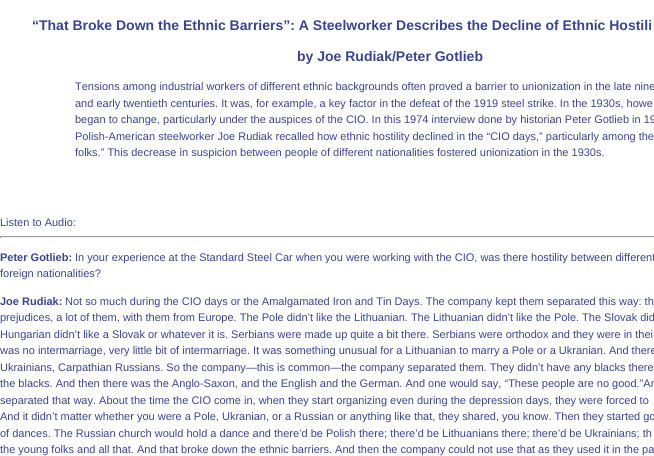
import math
import cairo


def draw(ctx):
	ctx.set_source_rgb(1, 1, 1)
	ctx.paint()
	ctx.select_font_face('Liberation Sans', cairo.FONT_SLANT_NORMAL, cairo.FONT_WEIGHT_BOLD)
	ctx.set_font_size(14)
	ctx.set_source_rgb(0.227, 0.271, 0.573)
	ctx.move_to(32, 30)
	ctx.show_text('“That Broke Down the Ethnic Barriers”: A Steelworker Describes the Decline of Ethnic Hostili')
	ctx.move_to(297, 61)
	ctx.show_text('by Joe Rudiak/Peter Gotlieb')
	ctx.select_font_face('Liberation Sans')
	ctx.set_font_size(11)
	for x, y, s in [
		(75, 90, 'Tensions among industrial workers of different ethnic backgrounds often proved a barrier to unionization in the late nine'),
		(75, 107, 'and early twentieth centuries. It was, for example, a key factor in the defeat of the 1919 steel strike. In the 1930s, howe'),
		(75, 123, 'began to change, particularly under the auspices of the CIO. In this 1974 interview done by historian Peter Gotlieb in 19'),
		(75, 140, 'Polish-American steelworker Joe Rudiak recalled how ethnic hostility declined in the “CIO days,” particularly among the'),
		(75, 156, 'folks.” This decrease in suspicion between people of different nationalities fostered unionization in the 1930s.'),
		(0, 226, 'Listen to Audio:'),
	]:
		ctx.move_to(x, y)
		ctx.show_text(s)
	ctx.set_source_rgb(0.624, 0.624, 0.624)
	ctx.rectangle(0, 236, 654, 1)
	ctx.fill()
	ctx.set_source_rgb(0.933, 0.933, 0.933)
	ctx.rectangle(0, 237, 654, 1)
	ctx.fill()
	ctx.set_source_rgb(0.624, 0.624, 0.624)
	ctx.rectangle(0, 236, 1, 2)
	ctx.fill()
	ctx.select_font_face('Liberation Sans', cairo.FONT_SLANT_NORMAL, cairo.FONT_WEIGHT_BOLD)
	ctx.set_source_rgb(0.227, 0.271, 0.573)
	ctx.move_to(0, 261)
	ctx.show_text('Peter Gotlieb:')
	ctx.select_font_face('Liberation Sans')
	ctx.move_to(75, 261)
	ctx.show_text('In your experience at the Standard Steel Car when you were working with the CIO, was there hostility between different')
	ctx.move_to(0, 277)
	ctx.show_text('foreign nationalities?')
	ctx.select_font_face('Liberation Sans', cairo.FONT_SLANT_NORMAL, cairo.FONT_WEIGHT_BOLD)
	ctx.move_to(0, 305)
	ctx.show_text('Joe Rudiak:')
	ctx.select_font_face('Liberation Sans')
	for x, y, s in [
		(65, 305, 'Not so much during the CIO days or the Amalgamated Iron and Tin Days. The company kept them separated this way: th'),
		(0, 321, 'prejudices, a lot of them, with them from Europe. The Pole didn’t like the Lithuanian. The Lithuanian didn’t like the Pole. The Slovak did'),
		(0, 338, 'Hungarian didn’t like a Slovak or whatever it is. Serbians were made up quite a bit there. Serbians were orthodox and they were in thei'),
		(0, 354, 'was no intermarriage, very little bit of intermarriage. It was something unusual for a Lithuanian to marry a Pole or a Ukranian. And there'),
		(0, 371, 'Ukrainians, Carpathian Russians. So the company—this is common—the company separated them. They didn’t have any blacks there'),
		(0, 387, 'the blacks. And then there was the Anglo-Saxon, and the English and the German. And one would say, “These people are no good.”An'),
		(0, 404, 'separated that way. About the time the CIO come in, when they start organizing even during the depression days, they were forced to'),
		(0, 420, 'And it didn’t matter whether you were a Pole, Ukranian, or a Russian or anything like that, they shared, you know. Then they started go'),
		(0, 437, 'of dances. The Russian church would hold a dance and there’d be Polish there; there’d be Lithuanians there; there’d be Ukrainians; th'),
		(0, 453, 'the young folks and all that. And that broke down the ethnic barriers. And then the company could not use that as they used it in the pa'),
	]:
		ctx.move_to(x, y)
		ctx.show_text(s)


surface = cairo.ImageSurface(cairo.FORMAT_RGB24, 654, 456)
ctx = cairo.Context(surface)
options = cairo.FontOptions()
options.set_hint_metrics(cairo.HINT_METRICS_OFF)
options.set_hint_style(cairo.HINT_STYLE_NONE)
ctx.set_font_options(options)
ctx.set_miter_limit(4)
draw(ctx)
surface.write_to_png('image.png')
